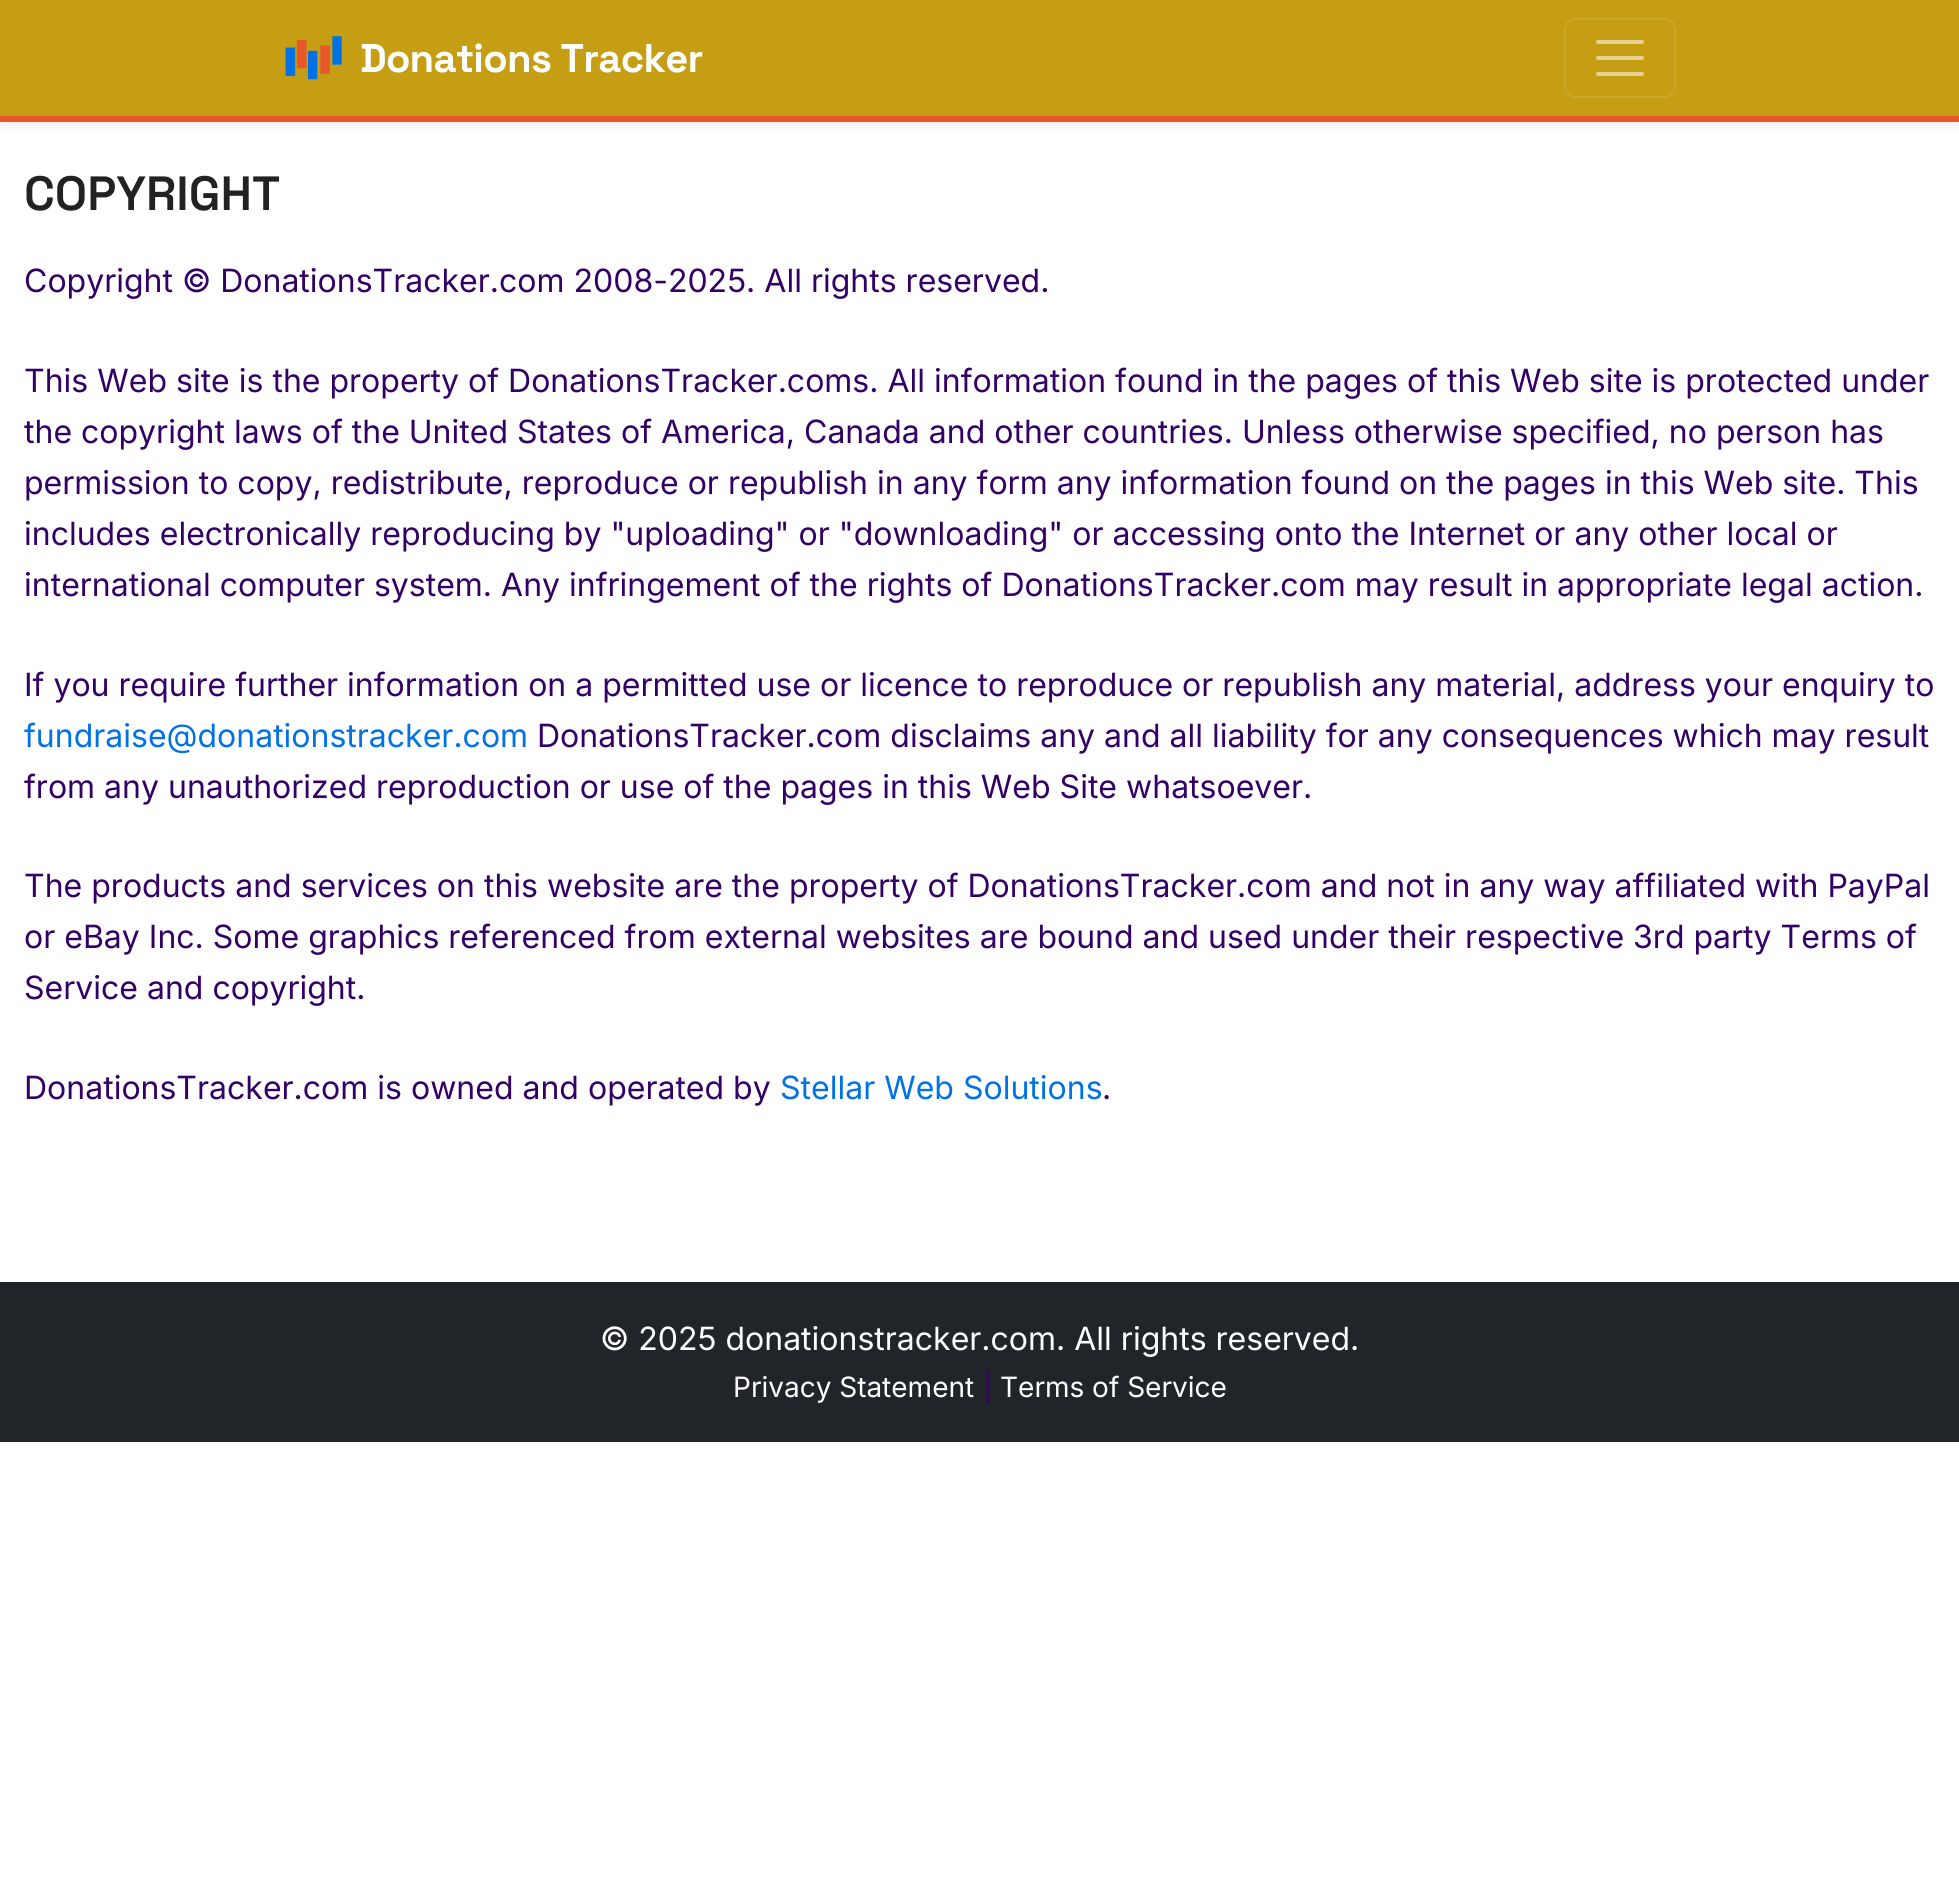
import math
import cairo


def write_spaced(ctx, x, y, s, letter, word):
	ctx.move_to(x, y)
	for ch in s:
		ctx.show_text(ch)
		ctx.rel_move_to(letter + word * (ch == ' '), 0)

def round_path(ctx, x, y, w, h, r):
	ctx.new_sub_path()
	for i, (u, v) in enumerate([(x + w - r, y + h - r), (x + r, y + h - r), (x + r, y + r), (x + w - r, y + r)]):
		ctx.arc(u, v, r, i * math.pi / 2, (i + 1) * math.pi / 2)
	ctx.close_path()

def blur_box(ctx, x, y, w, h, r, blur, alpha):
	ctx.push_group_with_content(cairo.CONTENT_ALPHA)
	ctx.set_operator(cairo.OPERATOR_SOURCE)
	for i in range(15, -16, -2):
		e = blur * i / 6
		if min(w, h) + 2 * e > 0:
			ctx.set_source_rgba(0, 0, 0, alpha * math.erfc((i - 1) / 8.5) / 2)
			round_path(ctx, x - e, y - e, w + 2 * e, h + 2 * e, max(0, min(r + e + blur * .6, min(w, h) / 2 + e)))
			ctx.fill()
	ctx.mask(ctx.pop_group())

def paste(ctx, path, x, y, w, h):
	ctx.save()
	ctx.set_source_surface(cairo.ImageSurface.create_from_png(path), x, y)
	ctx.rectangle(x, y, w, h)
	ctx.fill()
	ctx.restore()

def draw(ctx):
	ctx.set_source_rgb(1, 1, 1)
	ctx.paint()
	ctx.set_source_rgb(0, 0, 0)
	blur_box(ctx, 0, 4, 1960, 122, 0, 4, 0.07)
	ctx.set_source_rgb(0.773, 0.62, 0.082)
	ctx.rectangle(0, 0, 1959, 116)
	ctx.fill()
	ctx.set_source_rgb(0.906, 0.341, 0.165)
	ctx.rectangle(0, 116, 1959, 6)
	ctx.fill()
	paste(ctx, 'media/1.png', 285, 36, 57, 44)
	ctx.select_font_face('Space Grotesk', cairo.FONT_SLANT_NORMAL, cairo.FONT_WEIGHT_BOLD)
	ctx.set_font_size(40)
	ctx.set_source_rgb(1, 1, 1)
	write_spaced(ctx, 360, 72, 'Donations Tracker', -0.75, 0)
	round_path(ctx, 1565, 19, 110, 78, 11)
	ctx.set_source_rgb(0.796, 0.659, 0.173)
	ctx.stroke()
	ctx.new_path()
	ctx.move_to(1598, 42)
	ctx.line_to(1642, 42)
	ctx.move_to(1598, 58)
	ctx.line_to(1642, 58)
	ctx.move_to(1598, 74)
	ctx.line_to(1642, 74)
	ctx.set_source_rgb(0.898, 0.827, 0.588)
	ctx.set_line_width(4)
	ctx.set_line_cap(cairo.LINE_CAP_ROUND)
	ctx.stroke()
	ctx.select_font_face('Space Grotesk SemiBold')
	ctx.set_font_size(48)
	ctx.set_source_rgb(0.133, 0.133, 0.133)
	ctx.move_to(24, 210)
	ctx.show_text('COPYRIGHT')
	ctx.select_font_face('Inter')
	ctx.set_font_size(32)
	ctx.set_source_rgb(0.2, 0, 0.4)
	for x, y, s in [
		(24, 292, 'Copyright © DonationsTracker.com 2008-2025. All rights reserved.'),
		(24, 392, 'This Web site is the property of DonationsTracker.coms. All information found in the pages of this Web site is protected under'),
		(24, 443, 'the copyright laws of the United States of America, Canada and other countries. Unless otherwise specified, no person has'),
		(24, 494, 'permission to copy, redistribute, reproduce or republish in any form any information found on the pages in this Web site. This'),
		(24, 545, 'includes electronically reproducing by "uploading" or "downloading" or accessing onto the Internet or any other local or'),
		(24, 596, 'international computer system. Any infringement of the rights of DonationsTracker.com may result in appropriate legal action.'),
		(24, 696, 'If you require further information on a permitted use or licence to reproduce or republish any material, address your enquiry to'),
	]:
		ctx.move_to(x, y)
		ctx.show_text(s)
	ctx.set_source_rgb(0, 0.447, 0.902)
	ctx.move_to(24, 747)
	ctx.show_text('fundraise@donationstracker.com')
	ctx.set_source_rgb(0.2, 0, 0.4)
	for x, y, s in [
		(537, 747, 'DonationsTracker.com disclaims any and all liability for any consequences which may result'),
		(24, 798, 'from any unauthorized reproduction or use of the pages in this Web Site whatsoever.'),
		(24, 897, 'The products and services on this website are the property of DonationsTracker.com and not in any way affiliated with PayPal'),
		(24, 948, 'or eBay Inc. Some graphics referenced from external websites are bound and used under their respective 3rd party Terms of'),
		(24, 999, 'Service and copyright.'),
		(24, 1099, 'DonationsTracker.com is owned and operated by'),
	]:
		ctx.move_to(x, y)
		ctx.show_text(s)
	ctx.set_source_rgb(0, 0.447, 0.902)
	ctx.move_to(780, 1099)
	ctx.show_text('Stellar Web Solutions')
	ctx.set_source_rgb(0.2, 0, 0.4)
	ctx.move_to(1102, 1099)
	ctx.show_text('.')
	ctx.set_source_rgb(0.129, 0.145, 0.161)
	ctx.rectangle(0, 1282, 1959, 160)
	ctx.fill()
	ctx.set_source_rgb(1, 1, 1)
	ctx.move_to(600, 1350)
	ctx.show_text('© 2025 donationstracker.com. All rights reserved.')
	ctx.set_font_size(28)
	ctx.move_to(733, 1397)
	ctx.show_text('Privacy Statement')
	ctx.set_source_rgb(0.2, 0, 0.4)
	ctx.move_to(983, 1397)
	ctx.show_text('|')
	ctx.set_source_rgb(1, 1, 1)
	ctx.move_to(1000, 1397)
	ctx.show_text('Terms of Service')


surface = cairo.ImageSurface(cairo.FORMAT_RGB24, 1959, 1892)
ctx = cairo.Context(surface)
options = cairo.FontOptions()
options.set_hint_metrics(cairo.HINT_METRICS_OFF)
options.set_hint_style(cairo.HINT_STYLE_NONE)
ctx.set_font_options(options)
ctx.set_miter_limit(4)
draw(ctx)
surface.write_to_png('image.png')
